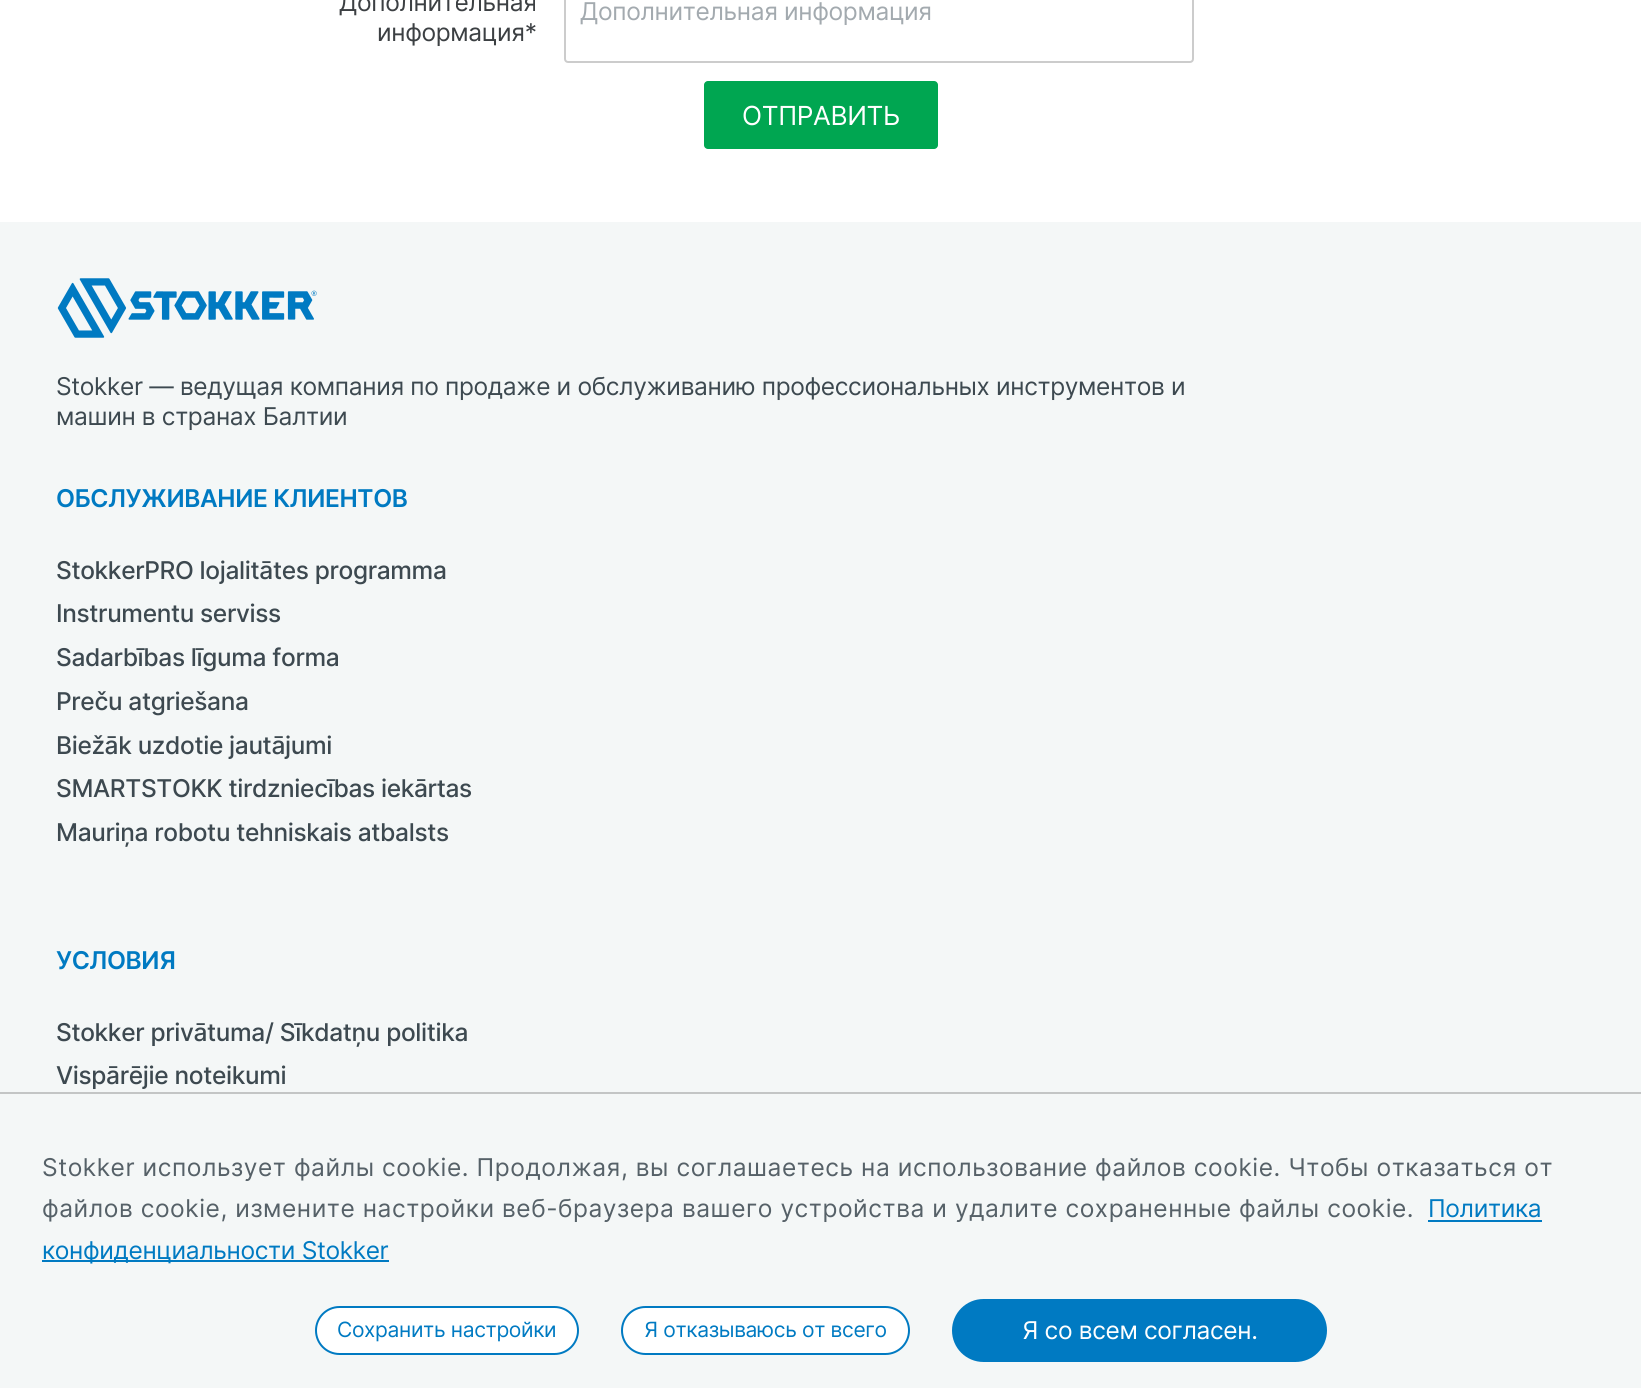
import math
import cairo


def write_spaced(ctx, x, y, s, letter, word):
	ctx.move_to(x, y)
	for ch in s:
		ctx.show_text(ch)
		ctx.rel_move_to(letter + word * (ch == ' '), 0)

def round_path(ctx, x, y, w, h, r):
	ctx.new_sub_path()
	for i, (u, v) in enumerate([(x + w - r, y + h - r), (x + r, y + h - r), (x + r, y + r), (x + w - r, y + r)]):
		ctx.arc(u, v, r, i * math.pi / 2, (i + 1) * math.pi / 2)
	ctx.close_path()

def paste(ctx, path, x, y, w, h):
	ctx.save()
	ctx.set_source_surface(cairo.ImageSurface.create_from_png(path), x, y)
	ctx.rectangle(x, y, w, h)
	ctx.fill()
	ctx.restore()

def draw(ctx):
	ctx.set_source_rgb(1, 1, 1)
	ctx.paint()
	ctx.select_font_face('Inter')
	ctx.set_font_size(24.5)
	ctx.set_source_rgb(0.235, 0.251, 0.263)
	write_spaced(ctx, 339, 11, 'Дополнительная', -0.35, 0)
	write_spaced(ctx, 377, 41, 'информация*', -0.35, 0)
	round_path(ctx, 565, -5, 628, 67, 3)
	ctx.set_source_rgb(0.8, 0.8, 0.8)
	ctx.stroke()
	ctx.set_source_rgb(0.639, 0.667, 0.686)
	write_spaced(ctx, 580, 20, 'Дополнительная информация', -0.35, 0)
	ctx.set_source_rgb(0, 0.651, 0.318)
	round_path(ctx, 704, 81, 234, 68, 4)
	ctx.fill()
	ctx.set_font_size(26.25)
	ctx.set_source_rgb(1, 1, 1)
	write_spaced(ctx, 742, 125, 'ОТПРАВИТЬ', -0.35, 0)
	ctx.set_source_rgb(0.957, 0.965, 0.965)
	ctx.rectangle(0, 222, 1641, 870)
	ctx.fill()
	paste(ctx, 'media/1.png', 57, 278, 260, 60)
	ctx.set_font_size(24.5)
	ctx.set_source_rgb(0.239, 0.286, 0.314)
	write_spaced(ctx, 56, 395, 'Stokker — ведущая компания по продаже и обслуживанию профессиональных инструментов и', -0.35, 0)
	write_spaced(ctx, 56, 425, 'машин в странах Балтии', -0.35, 0)
	ctx.select_font_face('Inter SemiBold')
	ctx.set_source_rgb(0, 0.478, 0.761)
	write_spaced(ctx, 56, 507, 'ОБСЛУЖИВАНИЕ КЛИЕНТОВ', -0.35, 0)
	ctx.select_font_face('Inter Medium')
	ctx.set_source_rgb(0.239, 0.286, 0.314)
	for x, y, s in [
		(56, 579, 'StokkerPRO lojalitātes programma'),
		(56, 622, 'Instrumentu serviss'),
		(56, 666, 'Sadarbības līguma forma'),
		(56, 710, 'Preču atgriešana'),
		(56, 754, 'Biežāk uzdotie jautājumi'),
		(56, 797, 'SMARTSTOKK tirdzniecības iekārtas'),
		(56, 841, 'Mauriņa robotu tehniskais atbalsts'),
	]:
		write_spaced(ctx, x, y, s, -0.35, 0)
	ctx.select_font_face('Inter SemiBold')
	ctx.set_source_rgb(0, 0.478, 0.761)
	write_spaced(ctx, 56, 969, 'УСЛОВИЯ', -0.35, 0)
	ctx.select_font_face('Inter Medium')
	ctx.set_source_rgb(0.239, 0.286, 0.314)
	write_spaced(ctx, 56, 1041, 'Stokker privātuma/ Sīkdatņu politika', -0.35, 0)
	write_spaced(ctx, 56, 1084, 'Vispārējie noteikumi', -0.35, 0)
	ctx.set_source_rgb(0.957, 0.965, 0.965)
	ctx.rectangle(0, 1094, 1641, 294)
	ctx.fill()
	ctx.set_source_rgb(0.765, 0.773, 0.773)
	ctx.rectangle(0, 1092, 1641, 2)
	ctx.fill()
	ctx.select_font_face('Inter')
	ctx.set_source_rgb(0.337, 0.38, 0.408)
	write_spaced(ctx, 42, 1176, 'Stokker использует файлы cookie. Продолжая, вы соглашаетесь на использование файлов cookie. Чтобы отказаться от', 0.56, 0)
	write_spaced(ctx, 42, 1217, 'файлов cookie, измените настройки веб-браузера вашего устройства и удалите сохраненные файлы cookie.', 0.56, 0)
	ctx.set_source_rgb(0, 0.478, 0.761)
	write_spaced(ctx, 1428, 1217, 'Политика', -0.35, 0)
	ctx.rectangle(1428, 1220, 114, 2)
	ctx.fill()
	ctx.rectangle(42, 1260, 347, 2)
	ctx.fill()
	write_spaced(ctx, 42, 1259, 'конфиденциальности Stokker', -0.35, 0)
	ctx.set_source_rgb(1, 1, 1)
	round_path(ctx, 316, 1307, 262, 47, 23.5)
	ctx.fill_preserve()
	ctx.set_source_rgb(0, 0.478, 0.761)
	ctx.stroke()
	ctx.set_font_size(21)
	write_spaced(ctx, 337, 1337, 'Сохранить настройки', -0.35, 0)
	ctx.set_source_rgb(1, 1, 1)
	round_path(ctx, 622, 1307, 287, 47, 23.5)
	ctx.fill_preserve()
	ctx.set_source_rgb(0, 0.478, 0.761)
	ctx.stroke()
	write_spaced(ctx, 644, 1337, 'Я отказываюсь от всего', -0.35, 0)
	round_path(ctx, 952, 1299, 375, 63, 31.5)
	ctx.fill()
	ctx.set_font_size(24.5)
	ctx.set_source_rgb(1, 1, 1)
	write_spaced(ctx, 1022, 1339, 'Я со всем согласен.', -0.35, 0)


surface = cairo.ImageSurface(cairo.FORMAT_RGB24, 1641, 1388)
ctx = cairo.Context(surface)
options = cairo.FontOptions()
options.set_hint_metrics(cairo.HINT_METRICS_OFF)
options.set_hint_style(cairo.HINT_STYLE_NONE)
ctx.set_font_options(options)
ctx.set_miter_limit(4)
draw(ctx)
surface.write_to_png('image.png')
